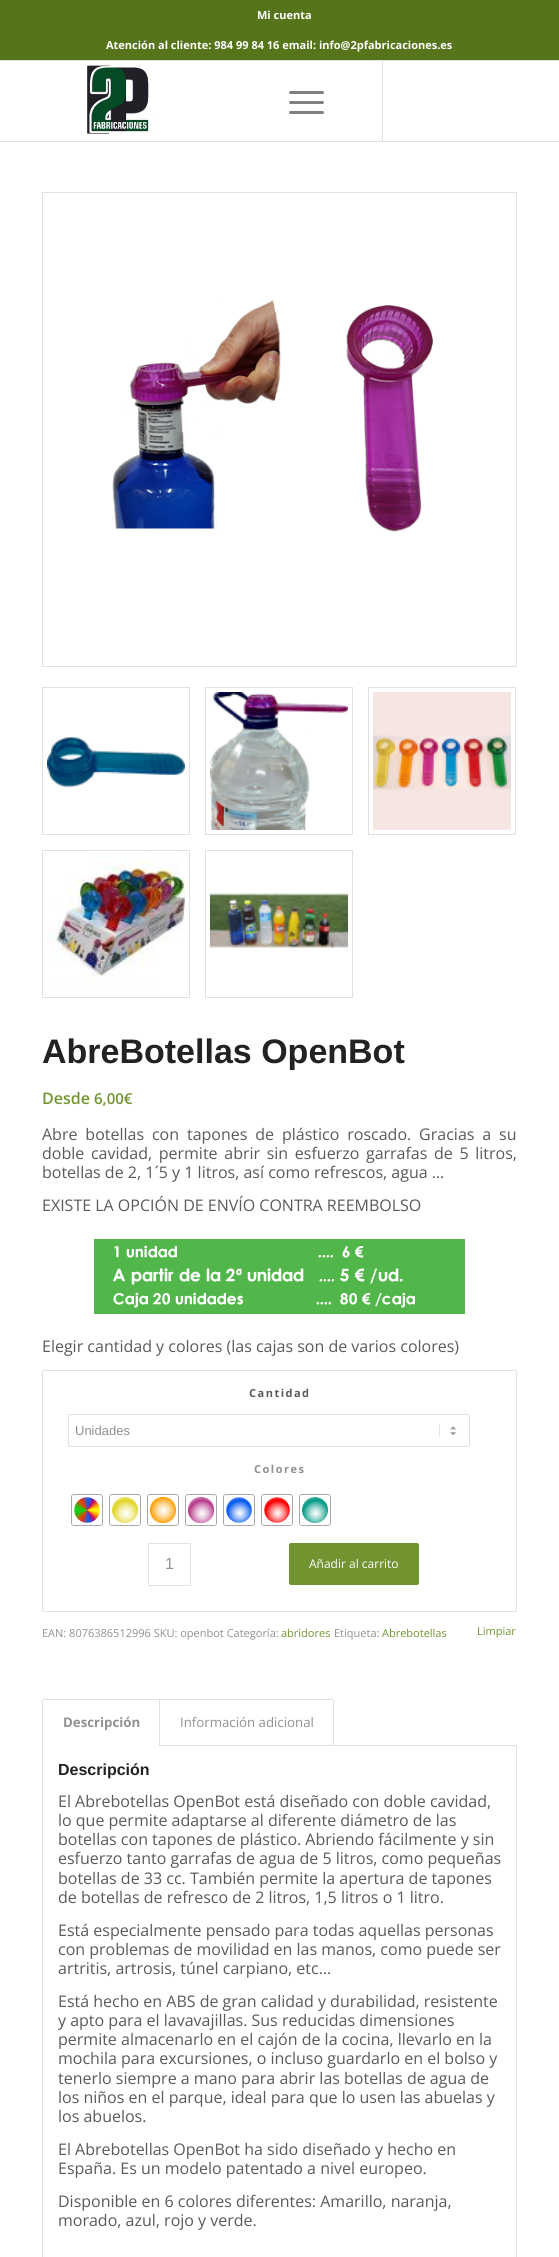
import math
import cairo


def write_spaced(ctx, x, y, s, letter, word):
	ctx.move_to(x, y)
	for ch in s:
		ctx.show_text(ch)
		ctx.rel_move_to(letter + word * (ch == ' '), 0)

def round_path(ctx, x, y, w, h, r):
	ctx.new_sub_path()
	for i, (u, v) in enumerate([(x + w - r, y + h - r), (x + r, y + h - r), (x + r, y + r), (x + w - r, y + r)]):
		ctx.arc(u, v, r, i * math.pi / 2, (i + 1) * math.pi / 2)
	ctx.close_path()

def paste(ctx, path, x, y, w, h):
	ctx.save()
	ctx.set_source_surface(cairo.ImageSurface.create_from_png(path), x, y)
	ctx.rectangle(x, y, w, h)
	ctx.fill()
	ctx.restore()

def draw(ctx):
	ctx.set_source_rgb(1, 1, 1)
	ctx.paint()
	ctx.set_source_rgb(0.337, 0.459, 0.106)
	ctx.rectangle(0, 0, 559, 60)
	ctx.fill()
	ctx.set_source_rgb(0.882, 0.882, 0.882)
	ctx.rectangle(0, 60, 559, 1)
	ctx.fill()
	ctx.select_font_face('Open Sans', cairo.FONT_SLANT_NORMAL, cairo.FONT_WEIGHT_BOLD)
	ctx.set_font_size(11)
	ctx.set_source_rgb(1, 1, 1)
	ctx.move_to(257, 19)
	ctx.show_text('Mi cuenta')
	ctx.move_to(106, 49)
	ctx.show_text('Atención al cliente: 984 99 84 16 email: info@2pfabricaciones.es')
	ctx.set_source_rgb(0.882, 0.882, 0.882)
	ctx.rectangle(0, 141, 559, 1)
	ctx.fill()
	paste(ctx, 'media/1.png', 87, 65, 66, 69)
	ctx.rectangle(382, 61, 1, 80)
	ctx.fill()
	ctx.set_source_rgb(0.502, 0.502, 0.502)
	round_path(ctx, 289, 101, 35, 3, 1.5)
	ctx.fill()
	round_path(ctx, 289, 91, 35, 3, 1.5)
	ctx.fill()
	round_path(ctx, 289, 111, 35, 3, 1.5)
	ctx.fill()
	ctx.rectangle(42.5, 192.5, 474, 474)
	ctx.set_source_rgb(0.882, 0.882, 0.882)
	ctx.set_line_width(1)
	ctx.stroke()
	paste(ctx, 'media/2.png', 112, 299, 321, 233)
	ctx.rectangle(42.5, 687.5, 147, 147)
	ctx.stroke()
	paste(ctx, 'media/3.png', 47, 736, 138, 52)
	ctx.rectangle(205.5, 687.5, 147, 147)
	ctx.stroke()
	paste(ctx, 'media/4.png', 210, 692, 138, 138)
	ctx.rectangle(368.5, 687.5, 147, 147)
	ctx.stroke()
	paste(ctx, 'media/5.png', 373, 692, 138, 138)
	ctx.rectangle(42.5, 850.5, 147, 147)
	ctx.stroke()
	paste(ctx, 'media/6.png', 47, 855, 138, 130)
	ctx.rectangle(205.5, 850.5, 147, 147)
	ctx.stroke()
	paste(ctx, 'media/7.png', 210, 893, 138, 55)
	ctx.select_font_face('Liberation Sans', cairo.FONT_SLANT_NORMAL, cairo.FONT_WEIGHT_BOLD)
	ctx.set_font_size(34)
	ctx.set_source_rgb(0.133, 0.133, 0.133)
	ctx.move_to(42, 1063)
	ctx.show_text('AbreBotellas OpenBot')
	ctx.select_font_face('Open Sans SemiBold')
	ctx.set_font_size(16)
	ctx.set_source_rgb(0.443, 0.58, 0.188)
	ctx.move_to(42, 1104)
	ctx.show_text('Desde')
	ctx.set_font_size(15)
	ctx.move_to(94, 1104)
	ctx.show_text('6,00€')
	ctx.select_font_face('Open Sans')
	ctx.set_font_size(16)
	ctx.set_source_rgb(0.361, 0.349, 0.361)
	write_spaced(ctx, 42, 1140, 'Abre botellas con tapones de plástico roscado. Gracias a su', 0, 3.75)
	write_spaced(ctx, 42, 1159, 'doble cavidad, permite abrir sin esfuerzo garrafas de 5 litros,', 0, 2.5)
	ctx.move_to(42, 1178)
	ctx.show_text('botellas de 2, 1´5 y 1 litros, así como refrescos, agua …')
	ctx.move_to(42, 1211)
	ctx.show_text('EXISTE LA OPCIÓN DE ENVÍO CONTRA REEMBOLSO')
	paste(ctx, 'media/8.png', 94, 1239, 371, 75)
	ctx.move_to(42, 1352)
	ctx.show_text('Elegir cantidad y colores (las cajas son de varios colores)')
	round_path(ctx, 42.5, 1370.5, 474, 241, 1.5)
	ctx.set_source_rgb(0.882, 0.882, 0.882)
	ctx.stroke()
	ctx.select_font_face('Open Sans', cairo.FONT_SLANT_NORMAL, cairo.FONT_WEIGHT_BOLD)
	ctx.set_font_size(11)
	ctx.set_source_rgb(0.361, 0.349, 0.361)
	write_spaced(ctx, 249, 1397, 'Cantidad', 1.5, 0)
	paste(ctx, 'media/9.png', 439, 1424, 18, 13)
	round_path(ctx, 68.5, 1414.5, 401, 32, 1.5)
	ctx.set_source_rgb(0.882, 0.882, 0.882)
	ctx.stroke()
	ctx.select_font_face('Liberation Sans')
	ctx.set_font_size(13)
	ctx.set_source_rgb(0.569, 0.569, 0.569)
	ctx.move_to(75, 1435)
	ctx.show_text('Unidades')
	ctx.select_font_face('Open Sans', cairo.FONT_SLANT_NORMAL, cairo.FONT_WEIGHT_BOLD)
	ctx.set_font_size(11)
	write_spaced(ctx, 254, 1473, 'Colores', 1.5, 0)
	round_path(ctx, 71.5, 1494.5, 31, 31, 2.5)
	ctx.set_source_rgb(0.659, 0.659, 0.659)
	ctx.stroke()
	ctx.set_source_rgb(1, 1, 1)
	round_path(ctx, 72, 1495, 30, 30, 2)
	ctx.fill()
	paste(ctx, 'media/10.png', 74, 1497, 26, 26)
	round_path(ctx, 109.5, 1494.5, 31, 31, 2.5)
	ctx.set_source_rgb(0.659, 0.659, 0.659)
	ctx.stroke()
	ctx.set_source_rgb(1, 1, 1)
	round_path(ctx, 110, 1495, 30, 30, 2)
	ctx.fill()
	paste(ctx, 'media/11.png', 112, 1497, 26, 26)
	round_path(ctx, 147.5, 1494.5, 31, 31, 2.5)
	ctx.set_source_rgb(0.659, 0.659, 0.659)
	ctx.stroke()
	ctx.set_source_rgb(1, 1, 1)
	round_path(ctx, 148, 1495, 30, 30, 2)
	ctx.fill()
	paste(ctx, 'media/12.png', 150, 1497, 26, 26)
	round_path(ctx, 185.5, 1494.5, 31, 31, 2.5)
	ctx.set_source_rgb(0.659, 0.659, 0.659)
	ctx.stroke()
	ctx.set_source_rgb(1, 1, 1)
	round_path(ctx, 186, 1495, 30, 30, 2)
	ctx.fill()
	paste(ctx, 'media/13.png', 188, 1497, 26, 26)
	round_path(ctx, 223.5, 1494.5, 31, 31, 2.5)
	ctx.set_source_rgb(0.659, 0.659, 0.659)
	ctx.stroke()
	ctx.set_source_rgb(1, 1, 1)
	round_path(ctx, 224, 1495, 30, 30, 2)
	ctx.fill()
	paste(ctx, 'media/14.png', 226, 1497, 26, 26)
	round_path(ctx, 261.5, 1494.5, 31, 31, 2.5)
	ctx.set_source_rgb(0.659, 0.659, 0.659)
	ctx.stroke()
	ctx.set_source_rgb(1, 1, 1)
	round_path(ctx, 262, 1495, 30, 30, 2)
	ctx.fill()
	paste(ctx, 'media/15.png', 264, 1497, 26, 26)
	round_path(ctx, 299.5, 1494.5, 31, 31, 2.5)
	ctx.set_source_rgb(0.659, 0.659, 0.659)
	ctx.stroke()
	ctx.set_source_rgb(1, 1, 1)
	round_path(ctx, 300, 1495, 30, 30, 2)
	ctx.fill()
	paste(ctx, 'media/16.png', 302, 1497, 26, 26)
	ctx.select_font_face('Open Sans')
	ctx.set_source_rgb(0.443, 0.58, 0.188)
	ctx.move_to(477, 1635)
	ctx.show_text('Limpiar')
	ctx.rectangle(148.5, 1543.5, 42, 42)
	ctx.set_source_rgb(0.882, 0.882, 0.882)
	ctx.stroke()
	ctx.select_font_face('Liberation Sans')
	ctx.set_font_size(16)
	ctx.set_source_rgb(0.569, 0.569, 0.569)
	ctx.move_to(165, 1569)
	ctx.show_text('1')
	ctx.set_source_rgb(0.443, 0.58, 0.188)
	round_path(ctx, 289, 1543, 130, 42, 2)
	ctx.fill()
	ctx.select_font_face('Open Sans')
	ctx.set_font_size(12)
	ctx.set_source_rgb(1, 1, 1)
	ctx.move_to(309, 1568)
	ctx.show_text('Añadir al carrito')
	ctx.set_font_size(11)
	ctx.set_source_rgb(0.569, 0.569, 0.569)
	ctx.move_to(42, 1637)
	ctx.show_text('EAN: 8076386512996 SKU: openbot Categoría:')
	ctx.set_source_rgb(0.443, 0.58, 0.188)
	ctx.move_to(281, 1637)
	ctx.show_text('abridores')
	ctx.set_source_rgb(0.569, 0.569, 0.569)
	ctx.move_to(334, 1637)
	ctx.show_text('Etiqueta:')
	ctx.set_source_rgb(0.443, 0.58, 0.188)
	ctx.move_to(382, 1637)
	ctx.show_text('Abrebotellas')
	ctx.rectangle(42.5, 1745.5, 474, 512)
	ctx.set_source_rgb(0.882, 0.882, 0.882)
	ctx.stroke()
	ctx.set_source_rgb(1, 1, 1)
	ctx.rectangle(42, 1745, 117, 1)
	ctx.fill()
	ctx.set_source_rgb(0.882, 0.882, 0.882)
	ctx.rectangle(43, 1699, 290, 1)
	ctx.rectangle(159, 1699, 1, 47)
	ctx.rectangle(42, 1700, 1, 46)
	ctx.fill()
	ctx.select_font_face('Open Sans', cairo.FONT_SLANT_NORMAL, cairo.FONT_WEIGHT_BOLD)
	ctx.set_font_size(13.25)
	ctx.set_source_rgb(0.569, 0.569, 0.569)
	ctx.move_to(63, 1727)
	ctx.show_text('Descripción')
	ctx.set_source_rgb(0.882, 0.882, 0.882)
	ctx.rectangle(333, 1700, 1, 46)
	ctx.fill()
	ctx.select_font_face('Open Sans')
	ctx.set_source_rgb(0.569, 0.569, 0.569)
	ctx.move_to(180, 1727)
	ctx.show_text('Información adicional')
	ctx.select_font_face('Liberation Sans', cairo.FONT_SLANT_NORMAL, cairo.FONT_WEIGHT_BOLD)
	ctx.set_font_size(16)
	ctx.set_source_rgb(0.133, 0.133, 0.133)
	ctx.move_to(58, 1775)
	ctx.show_text('Descripción')
	ctx.select_font_face('Open Sans')
	ctx.set_source_rgb(0.361, 0.349, 0.361)
	for x, y, s in [
		(58, 1807, 'El Abrebotellas OpenBot está diseñado con doble cavidad,'),
		(58, 1826, 'lo que permite adaptarse al diferente diámetro de las'),
		(58, 1845, 'botellas con tapones de plástico. Abriendo fácilmente y sin'),
		(58, 1864, 'esfuerzo tanto garrafas de agua de 5 litros, como pequeñas'),
		(58, 1884, 'botellas de 33 cc. También permite la apertura de tapones'),
		(58, 1903, 'de botellas de refresco de 2 litros, 1,5 litros o 1 litro.'),
		(58, 1936, 'Está especialmente pensado para todas aquellas personas'),
		(58, 1955, 'con problemas de movilidad en las manos, como puede ser'),
		(58, 1974, 'artritis, artrosis, túnel carpiano, etc…'),
		(58, 2007, 'Está hecho en ABS de gran calidad y durabilidad, resistente'),
		(58, 2026, 'y apto para el lavavajillas. Sus reducidas dimensiones'),
		(58, 2045, 'permite almacenarlo en el cajón de la cocina, llevarlo en la'),
		(58, 2064, 'mochila para excursiones, o incluso guardarlo en el bolso y'),
		(58, 2084, 'tenerlo siempre a mano para abrir las botellas de agua de'),
		(58, 2103, 'los niños en el parque, ideal para que lo usen las abuelas y'),
		(58, 2122, 'los abuelos.'),
		(58, 2155, 'El Abrebotellas OpenBot ha sido diseñado y hecho en'),
		(58, 2174, 'España. Es un modelo patentado a nivel europeo.'),
		(58, 2207, 'Disponible en 6 colores diferentes: Amarillo, naranja,'),
		(58, 2226, 'morado, azul, rojo y verde.'),
	]:
		ctx.move_to(x, y)
		ctx.show_text(s)


surface = cairo.ImageSurface(cairo.FORMAT_RGB24, 559, 2257)
ctx = cairo.Context(surface)
options = cairo.FontOptions()
options.set_hint_metrics(cairo.HINT_METRICS_OFF)
options.set_hint_style(cairo.HINT_STYLE_NONE)
ctx.set_font_options(options)
ctx.set_miter_limit(4)
draw(ctx)
surface.write_to_png('image.png')
